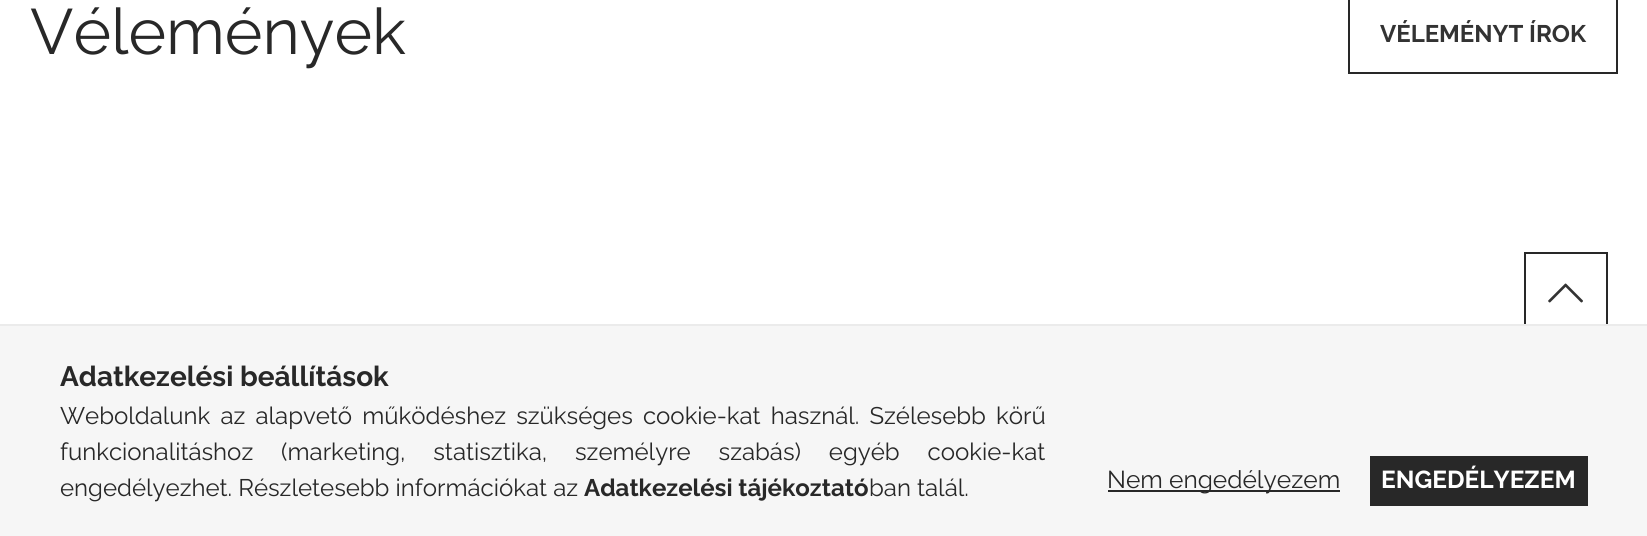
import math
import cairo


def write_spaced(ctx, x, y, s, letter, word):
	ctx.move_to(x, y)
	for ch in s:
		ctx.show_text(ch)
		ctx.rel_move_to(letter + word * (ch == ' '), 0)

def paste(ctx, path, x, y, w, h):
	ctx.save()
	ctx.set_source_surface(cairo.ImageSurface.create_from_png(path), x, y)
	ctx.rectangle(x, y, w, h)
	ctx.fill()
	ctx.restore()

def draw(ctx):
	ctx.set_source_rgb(1, 1, 1)
	ctx.paint()
	ctx.select_font_face('Raleway')
	ctx.set_font_size(64)
	ctx.set_source_rgb(0.157, 0.157, 0.157)
	ctx.move_to(30, 54)
	ctx.show_text('Vélemények')
	ctx.rectangle(1349, -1, 268, 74)
	ctx.stroke()
	ctx.select_font_face('Raleway', cairo.FONT_SLANT_NORMAL, cairo.FONT_WEIGHT_BOLD)
	ctx.set_font_size(24)
	ctx.set_source_rgb(0.2, 0.2, 0.2)
	ctx.move_to(1380, 42)
	ctx.show_text('VÉLEMÉNYT ÍROK')
	ctx.rectangle(1525, 253, 82, 82)
	ctx.set_source_rgb(0.157, 0.157, 0.157)
	ctx.stroke()
	paste(ctx, 'media/1.png', 1548, 283, 35, 20)
	ctx.set_source_rgb(0.961, 0.961, 0.961)
	ctx.rectangle(0, 326, 1647, 210)
	ctx.fill()
	ctx.set_source_rgb(0.918, 0.918, 0.918)
	ctx.rectangle(0, 324, 1647, 2)
	ctx.fill()
	ctx.set_font_size(28)
	ctx.set_source_rgb(0.157, 0.157, 0.157)
	ctx.move_to(60, 386)
	ctx.show_text('Adatkezelési beállítások')
	ctx.select_font_face('Raleway')
	ctx.set_font_size(24)
	write_spaced(ctx, 60, 424, 'Weboldalunk az alapvető működéshez szükséges cookie-kat használ. Szélesebb körű', 0, 4)
	write_spaced(ctx, 60, 460, 'funkcionalitáshoz (marketing, statisztika, személyre szabás) egyéb cookie-kat', 0, 21.75)
	ctx.move_to(60, 496)
	ctx.show_text('engedélyezhet. Részletesebb információkat az')
	ctx.select_font_face('Raleway', cairo.FONT_SLANT_NORMAL, cairo.FONT_WEIGHT_BOLD)
	ctx.move_to(584, 496)
	ctx.show_text('Adatkezelési tájékoztató')
	ctx.select_font_face('Raleway')
	ctx.move_to(869, 496)
	ctx.show_text('ban talál.')
	ctx.rectangle(1108, 490, 232, 2)
	ctx.fill()
	ctx.set_font_size(24.5)
	ctx.move_to(1107, 488)
	ctx.show_text('Nem engedélyezem')
	ctx.rectangle(1370, 456, 218, 50)
	ctx.fill()
	ctx.select_font_face('Raleway', cairo.FONT_SLANT_NORMAL, cairo.FONT_WEIGHT_BOLD)
	ctx.set_source_rgb(1, 1, 1)
	ctx.move_to(1381, 488)
	ctx.show_text('ENGEDÉLYEZEM')


surface = cairo.ImageSurface(cairo.FORMAT_RGB24, 1647, 536)
ctx = cairo.Context(surface)
options = cairo.FontOptions()
options.set_hint_metrics(cairo.HINT_METRICS_OFF)
options.set_hint_style(cairo.HINT_STYLE_NONE)
ctx.set_font_options(options)
ctx.set_miter_limit(4)
draw(ctx)
surface.write_to_png('image.png')
